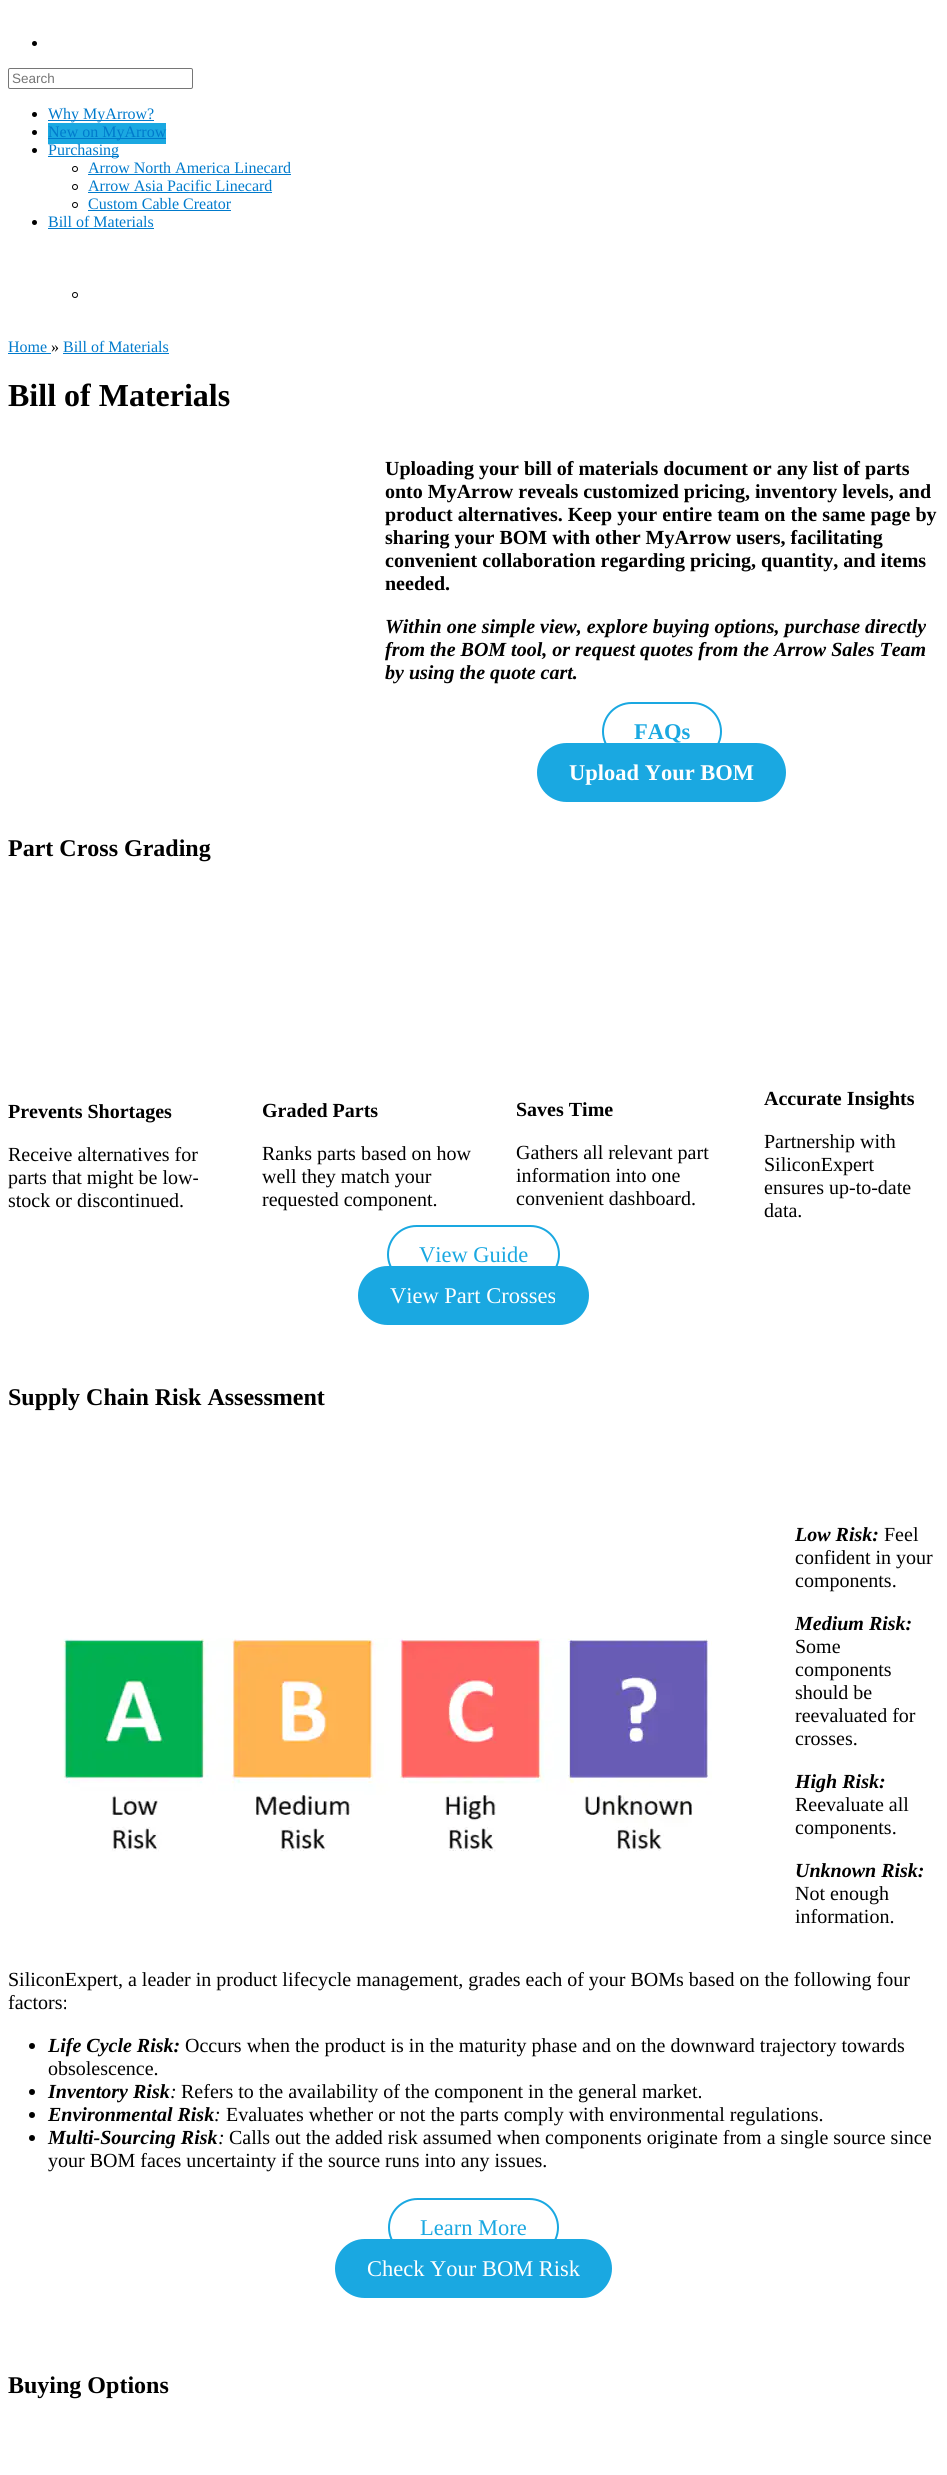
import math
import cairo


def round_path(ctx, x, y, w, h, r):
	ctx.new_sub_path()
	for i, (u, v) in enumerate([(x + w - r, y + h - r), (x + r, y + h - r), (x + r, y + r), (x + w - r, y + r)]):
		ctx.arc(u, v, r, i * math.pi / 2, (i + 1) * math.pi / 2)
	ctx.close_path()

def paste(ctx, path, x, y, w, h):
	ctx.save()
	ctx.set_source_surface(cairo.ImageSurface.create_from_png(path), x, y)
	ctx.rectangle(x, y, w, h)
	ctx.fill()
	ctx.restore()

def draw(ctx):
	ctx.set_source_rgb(1, 1, 1)
	ctx.paint()
	ctx.set_source_rgb(0, 0, 0)
	ctx.arc(34.5, 43.5, 2.5, 0, 2 * math.pi)
	ctx.fill()
	round_path(ctx, 8.5, 68.5, 184, 20, 1.5)
	ctx.set_source_rgb(0.463, 0.463, 0.463)
	ctx.set_line_width(1)
	ctx.stroke()
	ctx.select_font_face('Liberation Sans')
	ctx.set_font_size(13.5)
	ctx.set_source_rgb(0.459, 0.459, 0.459)
	ctx.move_to(12, 83)
	ctx.show_text('Search')
	ctx.set_source_rgb(0, 0, 0)
	ctx.new_path()
	ctx.arc(34.5, 114.5, 2.5, 0, 2 * math.pi)
	ctx.fill()
	ctx.set_source_rgb(0, 0.478, 0.8)
	ctx.rectangle(48, 120, 106, 1)
	ctx.fill()
	ctx.select_font_face('Liberation Serif')
	ctx.set_font_size(16)
	ctx.move_to(48, 119)
	ctx.show_text('Why MyArrow?')
	ctx.set_source_rgb(0, 0, 0)
	ctx.new_path()
	ctx.arc(34.5, 132.5, 2.5, 0, 2 * math.pi)
	ctx.fill()
	ctx.set_source_rgb(0.102, 0.659, 0.882)
	ctx.rectangle(48, 123, 118, 21)
	ctx.fill()
	ctx.set_source_rgb(0, 0.478, 0.8)
	ctx.rectangle(48, 138, 118, 1)
	ctx.fill()
	ctx.move_to(48, 137)
	ctx.show_text('New on MyArrow')
	ctx.set_source_rgb(0, 0, 0)
	ctx.new_path()
	ctx.arc(34.5, 150.5, 2.5, 0, 2 * math.pi)
	ctx.fill()
	ctx.set_source_rgb(0, 0.478, 0.8)
	ctx.rectangle(48, 156, 71, 1)
	ctx.fill()
	ctx.move_to(48, 155)
	ctx.show_text('Purchasing')
	ctx.new_path()
	ctx.arc(75, 169, 2.5, 0, 2 * math.pi)
	ctx.set_source_rgb(0, 0, 0)
	ctx.stroke()
	ctx.set_source_rgb(0, 0.478, 0.8)
	ctx.move_to(88, 173)
	ctx.show_text('Arrow North America Linecard')
	ctx.rectangle(88, 174, 203, 1)
	ctx.fill()
	ctx.arc(75, 187, 2.5, 0, 2 * math.pi)
	ctx.set_source_rgb(0, 0, 0)
	ctx.stroke()
	ctx.set_source_rgb(0, 0.478, 0.8)
	ctx.move_to(88, 191)
	ctx.show_text('Arrow Asia Pacific Linecard')
	ctx.rectangle(88, 192, 184, 1)
	ctx.fill()
	ctx.arc(75, 205, 2.5, 0, 2 * math.pi)
	ctx.set_source_rgb(0, 0, 0)
	ctx.stroke()
	ctx.set_source_rgb(0, 0.478, 0.8)
	ctx.move_to(88, 209)
	ctx.show_text('Custom Cable Creator')
	ctx.rectangle(88, 210, 143, 1)
	ctx.fill()
	ctx.set_source_rgb(0, 0, 0)
	ctx.arc(34.5, 222.5, 2.5, 0, 2 * math.pi)
	ctx.fill()
	ctx.set_source_rgb(0, 0.478, 0.8)
	ctx.move_to(48, 227)
	ctx.show_text('Bill of Materials')
	ctx.rectangle(48, 228, 106, 1)
	ctx.fill()
	ctx.arc(75, 295, 2.5, 0, 2 * math.pi)
	ctx.set_source_rgb(0, 0, 0)
	ctx.stroke()
	ctx.set_source_rgb(0, 0.478, 0.8)
	ctx.move_to(8, 352)
	ctx.show_text('Home')
	ctx.rectangle(8, 353, 43, 1)
	ctx.fill()
	ctx.set_source_rgb(0, 0, 0)
	ctx.move_to(51, 352)
	ctx.show_text('»')
	ctx.set_source_rgb(0, 0.478, 0.8)
	ctx.move_to(63, 352)
	ctx.show_text('Bill of Materials')
	ctx.rectangle(63, 353, 106, 1)
	ctx.fill()
	ctx.select_font_face('Liberation Serif', cairo.FONT_SLANT_NORMAL, cairo.FONT_WEIGHT_BOLD)
	ctx.set_font_size(32)
	ctx.set_source_rgb(0, 0, 0)
	ctx.move_to(8, 406)
	ctx.show_text('Bill of Materials')
	ctx.set_font_size(20)
	for x, y, s in [
		(385, 475, 'Uploading your bill of materials document or any list of parts'),
		(385, 498, 'onto MyArrow reveals customized pricing, inventory levels, and'),
		(385, 521, 'product alternatives. Keep your entire team on the same page by'),
		(385, 544, 'sharing your BOM with other MyArrow users, facilitating'),
		(385, 567, 'convenient collaboration regarding pricing, quantity, and items'),
		(385, 590, 'needed.'),
	]:
		ctx.move_to(x, y)
		ctx.show_text(s)
	ctx.select_font_face('Liberation Serif', cairo.FONT_SLANT_ITALIC, cairo.FONT_WEIGHT_BOLD)
	for x, y, s in [
		(385, 633, 'Within one simple view, explore buying options, purchase directly'),
		(385, 656, 'from the BOM tool, or request quotes from the Arrow Sales Team'),
		(385, 679, 'by using the quote cart.'),
	]:
		ctx.move_to(x, y)
		ctx.show_text(s)
	round_path(ctx, 603, 703, 118, 57, 28.5)
	ctx.set_source_rgb(0.102, 0.659, 0.882)
	ctx.set_line_width(2)
	ctx.stroke()
	ctx.select_font_face('Liberation Serif', cairo.FONT_SLANT_NORMAL, cairo.FONT_WEIGHT_BOLD)
	ctx.set_font_size(22.5)
	ctx.move_to(634, 739)
	ctx.show_text('FAQs')
	round_path(ctx, 537, 743, 249, 59, 29.5)
	ctx.fill()
	ctx.set_source_rgb(1, 1, 1)
	ctx.move_to(569, 780)
	ctx.show_text('Upload Your BOM')
	ctx.set_font_size(24)
	ctx.set_source_rgb(0, 0, 0)
	ctx.move_to(8, 856)
	ctx.show_text('Part Cross Grading')
	ctx.set_font_size(20)
	ctx.move_to(8, 1118)
	ctx.show_text('Prevents Shortages')
	ctx.select_font_face('Liberation Serif')
	for x, y, s in [
		(8, 1161, 'Receive alternatives for'),
		(8, 1184, 'parts that might be low-'),
		(8, 1207, 'stock or discontinued.'),
	]:
		ctx.move_to(x, y)
		ctx.show_text(s)
	ctx.select_font_face('Liberation Serif', cairo.FONT_SLANT_NORMAL, cairo.FONT_WEIGHT_BOLD)
	ctx.move_to(262, 1117)
	ctx.show_text('Graded Parts')
	ctx.select_font_face('Liberation Serif')
	for x, y, s in [
		(262, 1160, 'Ranks parts based on how'),
		(262, 1183, 'well they match your'),
		(262, 1206, 'requested component.'),
	]:
		ctx.move_to(x, y)
		ctx.show_text(s)
	ctx.select_font_face('Liberation Serif', cairo.FONT_SLANT_NORMAL, cairo.FONT_WEIGHT_BOLD)
	ctx.move_to(516, 1116)
	ctx.show_text('Saves Time')
	ctx.select_font_face('Liberation Serif')
	for x, y, s in [
		(516, 1159, 'Gathers all relevant part'),
		(516, 1182, 'information into one'),
		(516, 1205, 'convenient dashboard.'),
	]:
		ctx.move_to(x, y)
		ctx.show_text(s)
	ctx.select_font_face('Liberation Serif', cairo.FONT_SLANT_NORMAL, cairo.FONT_WEIGHT_BOLD)
	ctx.move_to(764, 1105)
	ctx.show_text('Accurate Insights')
	ctx.select_font_face('Liberation Serif')
	for x, y, s in [
		(764, 1148, 'Partnership with'),
		(764, 1171, 'SiliconExpert'),
		(764, 1194, 'ensures up-to-date'),
		(764, 1217, 'data.'),
	]:
		ctx.move_to(x, y)
		ctx.show_text(s)
	round_path(ctx, 388, 1226, 171, 57, 28.5)
	ctx.set_source_rgb(0.102, 0.659, 0.882)
	ctx.stroke()
	ctx.set_font_size(22.5)
	ctx.move_to(419, 1262)
	ctx.show_text('View Guide')
	round_path(ctx, 358, 1266, 231, 59, 29.5)
	ctx.fill()
	ctx.set_source_rgb(1, 1, 1)
	ctx.move_to(390, 1303)
	ctx.show_text('View Part Crosses')
	ctx.select_font_face('Liberation Serif', cairo.FONT_SLANT_NORMAL, cairo.FONT_WEIGHT_BOLD)
	ctx.set_font_size(24)
	ctx.set_source_rgb(0, 0, 0)
	ctx.move_to(8, 1405)
	ctx.show_text('Supply Chain Risk Assessment')
	paste(ctx, 'media/1.png', 60, 1638, 652, 214)
	ctx.select_font_face('Liberation Serif', cairo.FONT_SLANT_ITALIC, cairo.FONT_WEIGHT_BOLD)
	ctx.set_font_size(20)
	ctx.move_to(795, 1541)
	ctx.show_text('Low Risk:')
	ctx.select_font_face('Liberation Serif')
	for x, y, s in [
		(884, 1541, 'Feel'),
		(795, 1564, 'confident in your'),
		(795, 1587, 'components.'),
	]:
		ctx.move_to(x, y)
		ctx.show_text(s)
	ctx.select_font_face('Liberation Serif', cairo.FONT_SLANT_ITALIC, cairo.FONT_WEIGHT_BOLD)
	ctx.move_to(795, 1630)
	ctx.show_text('Medium Risk:')
	ctx.select_font_face('Liberation Serif')
	for x, y, s in [
		(795, 1653, 'Some'),
		(795, 1676, 'components'),
		(795, 1699, 'should be'),
		(795, 1722, 'reevaluated for'),
		(795, 1745, 'crosses.'),
	]:
		ctx.move_to(x, y)
		ctx.show_text(s)
	ctx.select_font_face('Liberation Serif', cairo.FONT_SLANT_ITALIC, cairo.FONT_WEIGHT_BOLD)
	ctx.move_to(795, 1788)
	ctx.show_text('High Risk:')
	ctx.select_font_face('Liberation Serif')
	ctx.move_to(795, 1811)
	ctx.show_text('Reevaluate all')
	ctx.move_to(795, 1834)
	ctx.show_text('components.')
	ctx.select_font_face('Liberation Serif', cairo.FONT_SLANT_ITALIC, cairo.FONT_WEIGHT_BOLD)
	ctx.move_to(795, 1877)
	ctx.show_text('Unknown Risk:')
	ctx.select_font_face('Liberation Serif')
	for x, y, s in [
		(795, 1900, 'Not enough'),
		(795, 1923, 'information.'),
		(8, 1986, 'SiliconExpert, a leader in product lifecycle management, grades each of your BOMs based on the following four'),
		(8, 2009, 'factors:'),
	]:
		ctx.move_to(x, y)
		ctx.show_text(s)
	ctx.new_path()
	ctx.arc(32, 2046, 3, 0, 2 * math.pi)
	ctx.fill()
	ctx.select_font_face('Liberation Serif', cairo.FONT_SLANT_ITALIC, cairo.FONT_WEIGHT_BOLD)
	ctx.move_to(48, 2052)
	ctx.show_text('Life Cycle Risk:')
	ctx.select_font_face('Liberation Serif')
	ctx.move_to(185, 2052)
	ctx.show_text('Occurs when the product is in the maturity phase and on the downward trajectory towards')
	ctx.move_to(48, 2075)
	ctx.show_text('obsolescence.')
	ctx.new_path()
	ctx.arc(32, 2092, 3, 0, 2 * math.pi)
	ctx.fill()
	ctx.select_font_face('Liberation Serif', cairo.FONT_SLANT_ITALIC, cairo.FONT_WEIGHT_BOLD)
	ctx.move_to(48, 2098)
	ctx.show_text('Inventory Risk')
	ctx.select_font_face('Liberation Serif', cairo.FONT_SLANT_ITALIC)
	ctx.move_to(170, 2098)
	ctx.show_text(':')
	ctx.select_font_face('Liberation Serif')
	ctx.move_to(181, 2098)
	ctx.show_text('Refers to the availability of the component in the general market.')
	ctx.new_path()
	ctx.arc(32, 2115, 3, 0, 2 * math.pi)
	ctx.fill()
	ctx.select_font_face('Liberation Serif', cairo.FONT_SLANT_ITALIC, cairo.FONT_WEIGHT_BOLD)
	ctx.move_to(48, 2121)
	ctx.show_text('Environmental Risk')
	ctx.select_font_face('Liberation Serif', cairo.FONT_SLANT_ITALIC)
	ctx.move_to(214, 2121)
	ctx.show_text(':')
	ctx.select_font_face('Liberation Serif')
	ctx.move_to(226, 2121)
	ctx.show_text('Evaluates whether or not the parts comply with environmental regulations.')
	ctx.new_path()
	ctx.arc(32, 2138, 3, 0, 2 * math.pi)
	ctx.fill()
	ctx.select_font_face('Liberation Serif', cairo.FONT_SLANT_ITALIC, cairo.FONT_WEIGHT_BOLD)
	ctx.move_to(48, 2144)
	ctx.show_text('Multi-Sourcing Risk')
	ctx.select_font_face('Liberation Serif', cairo.FONT_SLANT_ITALIC)
	ctx.move_to(218, 2144)
	ctx.show_text(':')
	ctx.select_font_face('Liberation Serif')
	ctx.move_to(229, 2144)
	ctx.show_text('Calls out the added risk assumed when components originate from a single source since')
	ctx.move_to(48, 2167)
	ctx.show_text('your BOM faces uncertainty if the source runs into any issues.')
	round_path(ctx, 389, 2199, 169, 57, 28.5)
	ctx.set_source_rgb(0.102, 0.659, 0.882)
	ctx.stroke()
	ctx.set_font_size(22.5)
	ctx.move_to(420, 2235)
	ctx.show_text('Learn More')
	round_path(ctx, 335, 2239, 277, 59, 29.5)
	ctx.fill()
	ctx.set_source_rgb(1, 1, 1)
	ctx.move_to(367, 2276)
	ctx.show_text('Check Your BOM Risk')
	ctx.select_font_face('Liberation Serif', cairo.FONT_SLANT_NORMAL, cairo.FONT_WEIGHT_BOLD)
	ctx.set_font_size(24)
	ctx.set_source_rgb(0, 0, 0)
	ctx.move_to(8, 2393)
	ctx.show_text('Buying Options')


surface = cairo.ImageSurface(cairo.FORMAT_RGB24, 947, 2475)
ctx = cairo.Context(surface)
options = cairo.FontOptions()
options.set_hint_metrics(cairo.HINT_METRICS_OFF)
options.set_hint_style(cairo.HINT_STYLE_NONE)
ctx.set_font_options(options)
ctx.set_miter_limit(4)
draw(ctx)
surface.write_to_png('image.png')
